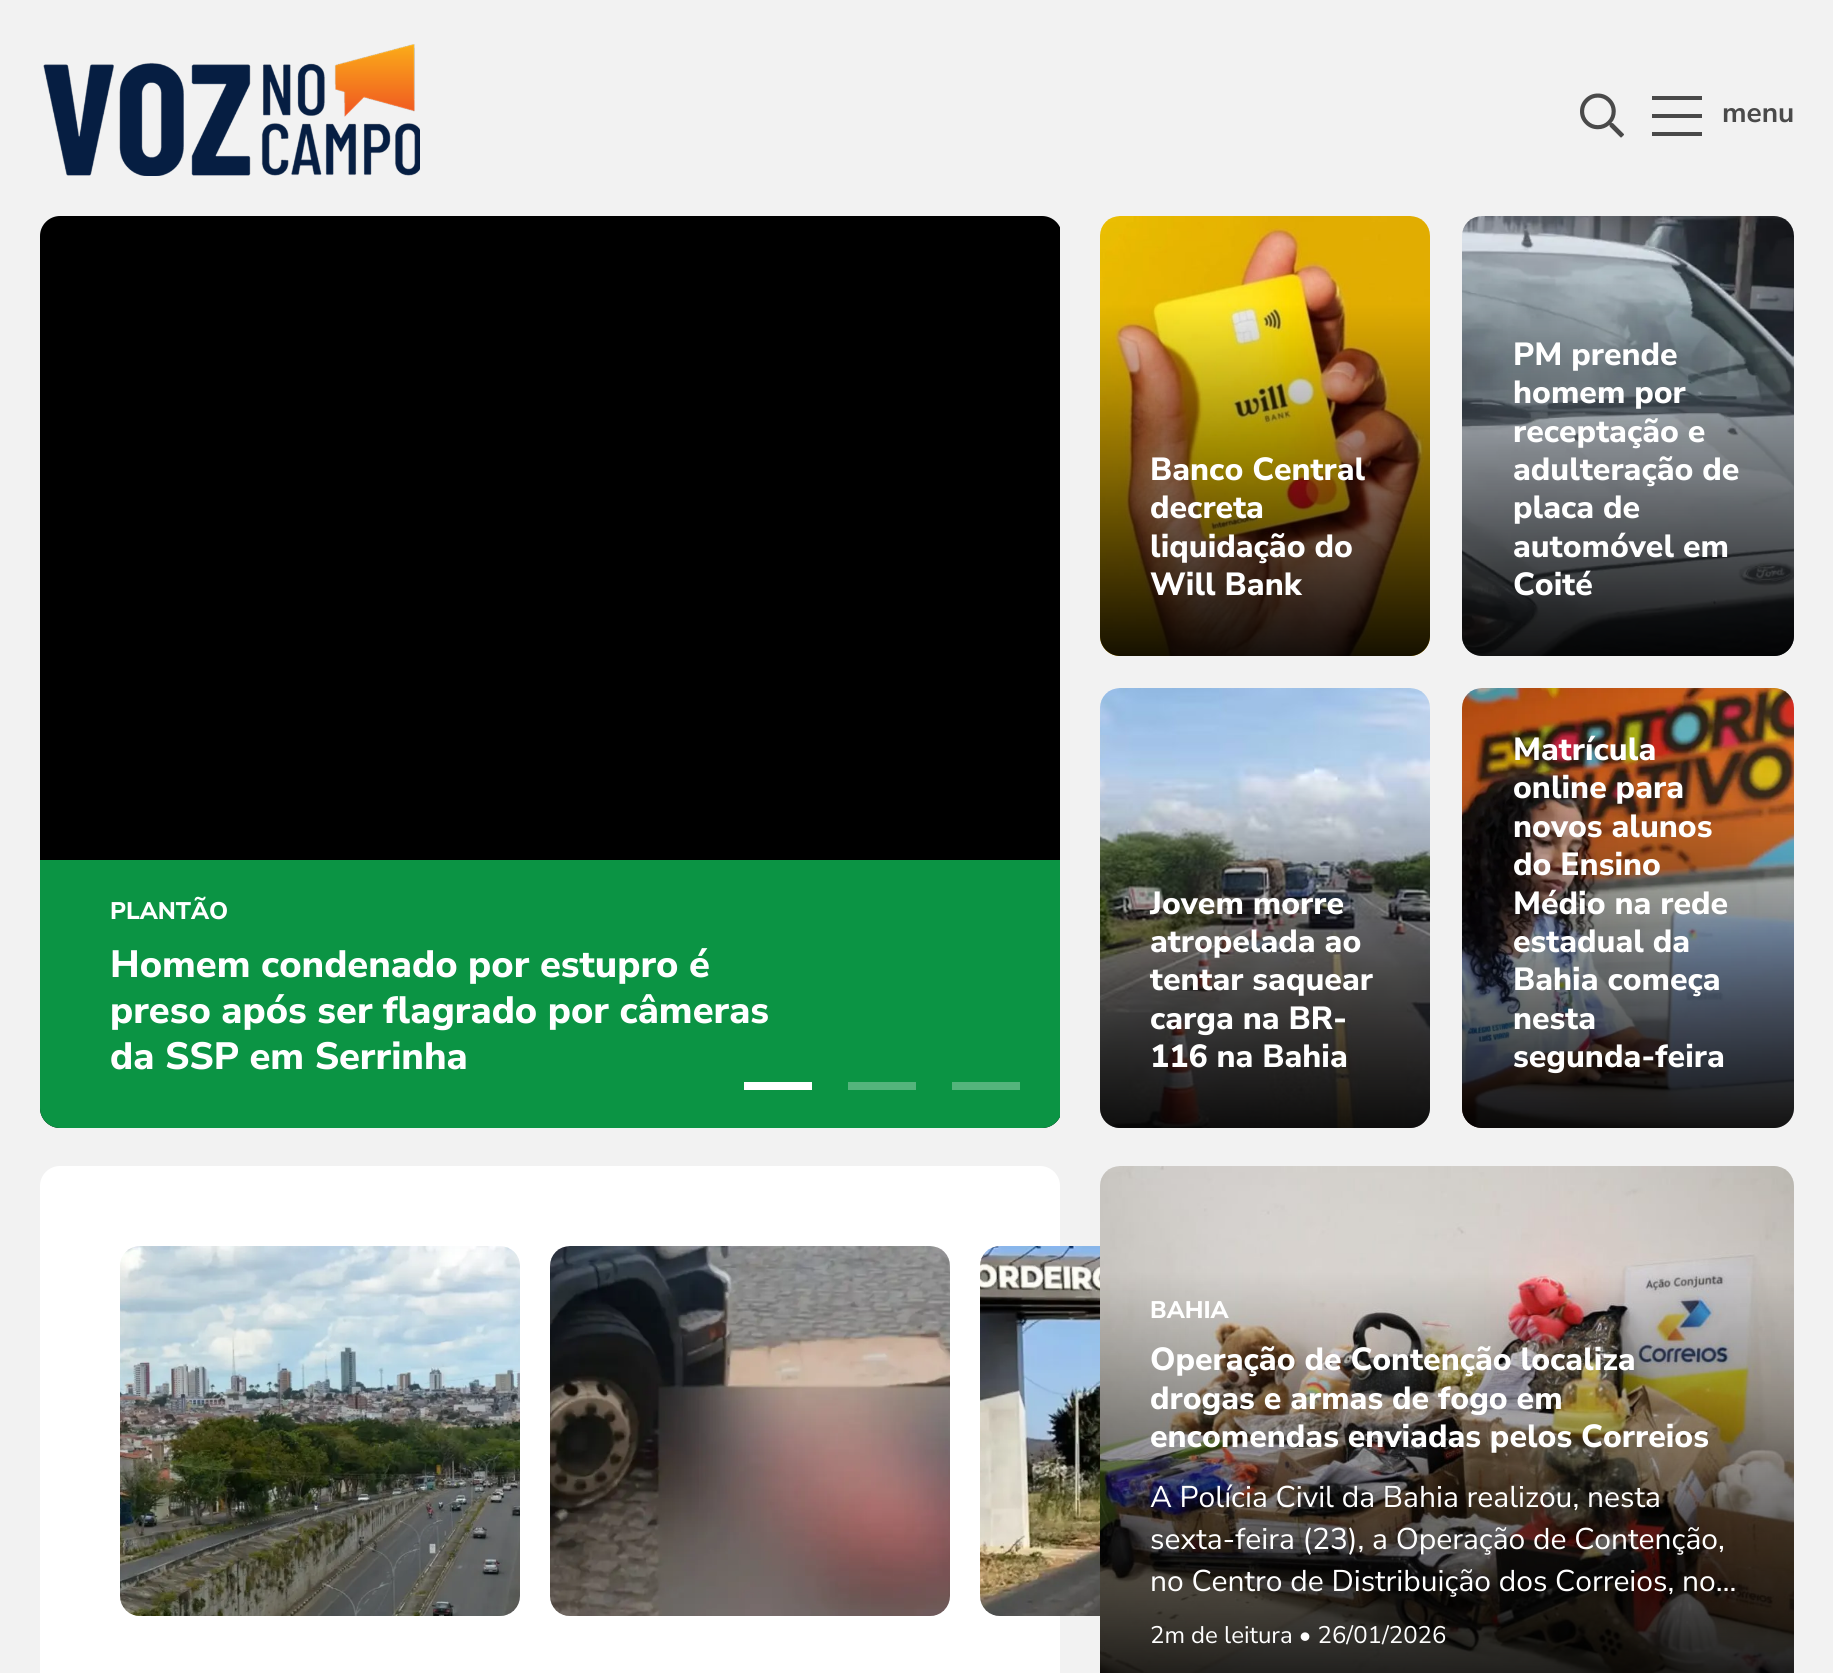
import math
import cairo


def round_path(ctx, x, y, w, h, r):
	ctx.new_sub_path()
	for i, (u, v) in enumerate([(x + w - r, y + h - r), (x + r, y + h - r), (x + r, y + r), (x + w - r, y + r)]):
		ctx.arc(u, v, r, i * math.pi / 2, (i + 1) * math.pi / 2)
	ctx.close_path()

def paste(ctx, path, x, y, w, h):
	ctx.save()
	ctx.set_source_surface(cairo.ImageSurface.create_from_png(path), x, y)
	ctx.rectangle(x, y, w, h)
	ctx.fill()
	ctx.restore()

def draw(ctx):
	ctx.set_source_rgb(0.949, 0.949, 0.949)
	ctx.paint()
	paste(ctx, 'media/1.png', 43, 44, 377, 132)
	paste(ctx, 'media/2.png', 1580, 93, 44, 45)
	ctx.set_source_rgb(0.29, 0.29, 0.29)
	ctx.rectangle(1652, 96, 50, 4)
	ctx.rectangle(1652, 114, 50, 4)
	ctx.rectangle(1652, 132, 50, 4)
	ctx.fill()
	ctx.select_font_face('Nunito Sans', cairo.FONT_SLANT_NORMAL, cairo.FONT_WEIGHT_BOLD)
	ctx.set_font_size(28)
	ctx.move_to(1722, 122)
	ctx.show_text('menu')
	ctx.save()
	round_path(ctx, 40, 216, 1022, 912, 20)
	ctx.clip()
	ctx.set_source_rgb(0, 0, 0)
	ctx.new_path()
	ctx.move_to(60, 216)
	ctx.line_to(1060, 216)
	ctx.line_to(1060, 1128)
	ctx.line_to(60, 1128)
	ctx.curve_to(49, 1128, 40, 1119, 40, 1108)
	ctx.line_to(40, 236)
	ctx.curve_to(40, 225, 49, 216, 60, 216)
	ctx.close_path()
	ctx.fill()
	ctx.set_source_rgb(0.043, 0.58, 0.267)
	ctx.new_path()
	ctx.move_to(40, 860)
	ctx.line_to(1060, 860)
	ctx.line_to(1060, 1128)
	ctx.line_to(60, 1128)
	ctx.curve_to(49, 1128, 40, 1119, 40, 1108)
	ctx.close_path()
	ctx.fill()
	ctx.restore()
	ctx.select_font_face('Nunito Sans ExtraBold')
	ctx.set_font_size(24)
	ctx.set_source_rgb(1, 1, 1)
	ctx.move_to(110, 919)
	ctx.show_text('PLANTÃO')
	ctx.set_font_size(38)
	for x, y, s in [
		(110, 977, 'Homem condenado por estupro é'),
		(110, 1023, 'preso após ser flagrado por câmeras'),
		(110, 1069, 'da SSP em Serrinha'),
	]:
		ctx.move_to(x, y)
		ctx.show_text(s)
	ctx.rectangle(744, 1082, 68, 8)
	ctx.fill()
	ctx.set_source_rgb(0.329, 0.706, 0.486)
	ctx.rectangle(848, 1082, 68, 8)
	ctx.rectangle(952, 1082, 68, 8)
	ctx.fill()
	paste(ctx, 'media/3.png', 1100, 216, 330, 440)
	gradient = cairo.LinearGradient(1265, 656, 1265, 304)
	gradient.add_color_stop_rgba(0, 0, 0, 0, 0.9)
	gradient.add_color_stop_rgba(1, 0, 0, 0, 0)
	ctx.set_source(gradient)
	ctx.new_path()
	ctx.move_to(1100, 304)
	ctx.line_to(1430, 304)
	ctx.line_to(1430, 636)
	ctx.curve_to(1430, 647, 1421, 656, 1410, 656)
	ctx.line_to(1120, 656)
	ctx.curve_to(1109, 656, 1100, 647, 1100, 636)
	ctx.close_path()
	ctx.fill()
	ctx.set_font_size(32)
	ctx.set_source_rgb(1, 1, 1)
	for x, y, s in [
		(1150, 480, 'Banco Central'),
		(1150, 518, 'decreta'),
		(1150, 557, 'liquidação do'),
		(1150, 595, 'Will Bank'),
	]:
		ctx.move_to(x, y)
		ctx.show_text(s)
	paste(ctx, 'media/4.png', 1462, 216, 332, 440)
	gradient = cairo.LinearGradient(1628, 656, 1628, 304)
	gradient.add_color_stop_rgba(0, 0, 0, 0, 0.9)
	gradient.add_color_stop_rgba(1, 0, 0, 0, 0)
	ctx.set_source(gradient)
	ctx.new_path()
	ctx.move_to(1462, 304)
	ctx.line_to(1794, 304)
	ctx.line_to(1794, 636)
	ctx.curve_to(1794, 647, 1785, 656, 1774, 656)
	ctx.line_to(1482, 656)
	ctx.curve_to(1471, 656, 1462, 647, 1462, 636)
	ctx.close_path()
	ctx.fill()
	ctx.set_source_rgb(1, 1, 1)
	for x, y, s in [
		(1513, 365, 'PM prende'),
		(1513, 403, 'homem por'),
		(1513, 442, 'receptação e'),
		(1513, 480, 'adulteração de'),
		(1513, 518, 'placa de'),
		(1513, 557, 'automóvel em'),
		(1513, 595, 'Coité'),
	]:
		ctx.move_to(x, y)
		ctx.show_text(s)
	paste(ctx, 'media/5.png', 1100, 688, 330, 440)
	gradient = cairo.LinearGradient(1265, 1128, 1265, 776)
	gradient.add_color_stop_rgba(0, 0, 0, 0, 0.9)
	gradient.add_color_stop_rgba(1, 0, 0, 0, 0)
	ctx.set_source(gradient)
	ctx.new_path()
	ctx.move_to(1100, 776)
	ctx.line_to(1430, 776)
	ctx.line_to(1430, 1108)
	ctx.curve_to(1430, 1119, 1421, 1128, 1410, 1128)
	ctx.line_to(1120, 1128)
	ctx.curve_to(1109, 1128, 1100, 1119, 1100, 1108)
	ctx.close_path()
	ctx.fill()
	ctx.set_source_rgb(1, 1, 1)
	for x, y, s in [
		(1150, 914, 'Jovem morre'),
		(1150, 952, 'atropelada ao'),
		(1150, 990, 'tentar saquear'),
		(1150, 1029, 'carga na BR-'),
		(1150, 1067, '116 na Bahia'),
	]:
		ctx.move_to(x, y)
		ctx.show_text(s)
	paste(ctx, 'media/6.png', 1462, 688, 332, 440)
	ctx.move_to(1513, 760)
	ctx.show_text('Matrícula')
	gradient = cairo.LinearGradient(1628, 1128, 1628, 776)
	gradient.add_color_stop_rgba(0, 0, 0, 0, 0.9)
	gradient.add_color_stop_rgba(1, 0, 0, 0, 0)
	ctx.set_source(gradient)
	ctx.new_path()
	ctx.move_to(1462, 776)
	ctx.line_to(1794, 776)
	ctx.line_to(1794, 1108)
	ctx.curve_to(1794, 1119, 1785, 1128, 1774, 1128)
	ctx.line_to(1482, 1128)
	ctx.curve_to(1471, 1128, 1462, 1119, 1462, 1108)
	ctx.close_path()
	ctx.fill()
	ctx.set_source_rgb(1, 1, 1)
	for x, y, s in [
		(1513, 798, 'online para'),
		(1513, 837, 'novos alunos'),
		(1513, 875, 'do Ensino'),
		(1513, 914, 'Médio na rede'),
		(1513, 952, 'estadual da'),
		(1513, 990, 'Bahia começa'),
		(1513, 1029, 'nesta'),
		(1513, 1067, 'segunda-feira'),
	]:
		ctx.move_to(x, y)
		ctx.show_text(s)
	round_path(ctx, 40, 1166, 1020, 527, 20)
	ctx.fill()
	paste(ctx, 'media/7.png', 120, 1246, 400, 370)
	paste(ctx, 'media/8.png', 550, 1246, 400, 370)
	paste(ctx, 'media/9.png', 980, 1246, 120, 370)
	paste(ctx, 'media/10.png', 1100, 1166, 694, 507)
	ctx.set_font_size(24)
	ctx.move_to(1150, 1318)
	ctx.show_text('BAHIA')
	ctx.set_font_size(32)
	for x, y, s in [
		(1150, 1370, 'Operação de Contenção localiza'),
		(1150, 1409, 'drogas e armas de fogo em'),
		(1150, 1447, 'encomendas enviadas pelos Correios'),
	]:
		ctx.move_to(x, y)
		ctx.show_text(s)
	ctx.select_font_face('Nunito Sans')
	ctx.set_font_size(30)
	for x, y, s in [
		(1150, 1507, 'A Polícia Civil da Bahia realizou, nesta'),
		(1150, 1549, 'sexta-feira (23), a Operação de Contenção,'),
		(1150, 1591, 'no Centro de Distribuição dos Correios, no…'),
	]:
		ctx.move_to(x, y)
		ctx.show_text(s)
	ctx.set_font_size(24)
	ctx.move_to(1150, 1643)
	ctx.show_text('2m de leitura • 26/01/2026')


surface = cairo.ImageSurface(cairo.FORMAT_RGB24, 1833, 1673)
ctx = cairo.Context(surface)
options = cairo.FontOptions()
options.set_hint_metrics(cairo.HINT_METRICS_OFF)
options.set_hint_style(cairo.HINT_STYLE_NONE)
ctx.set_font_options(options)
ctx.set_miter_limit(4)
draw(ctx)
surface.write_to_png('image.png')
